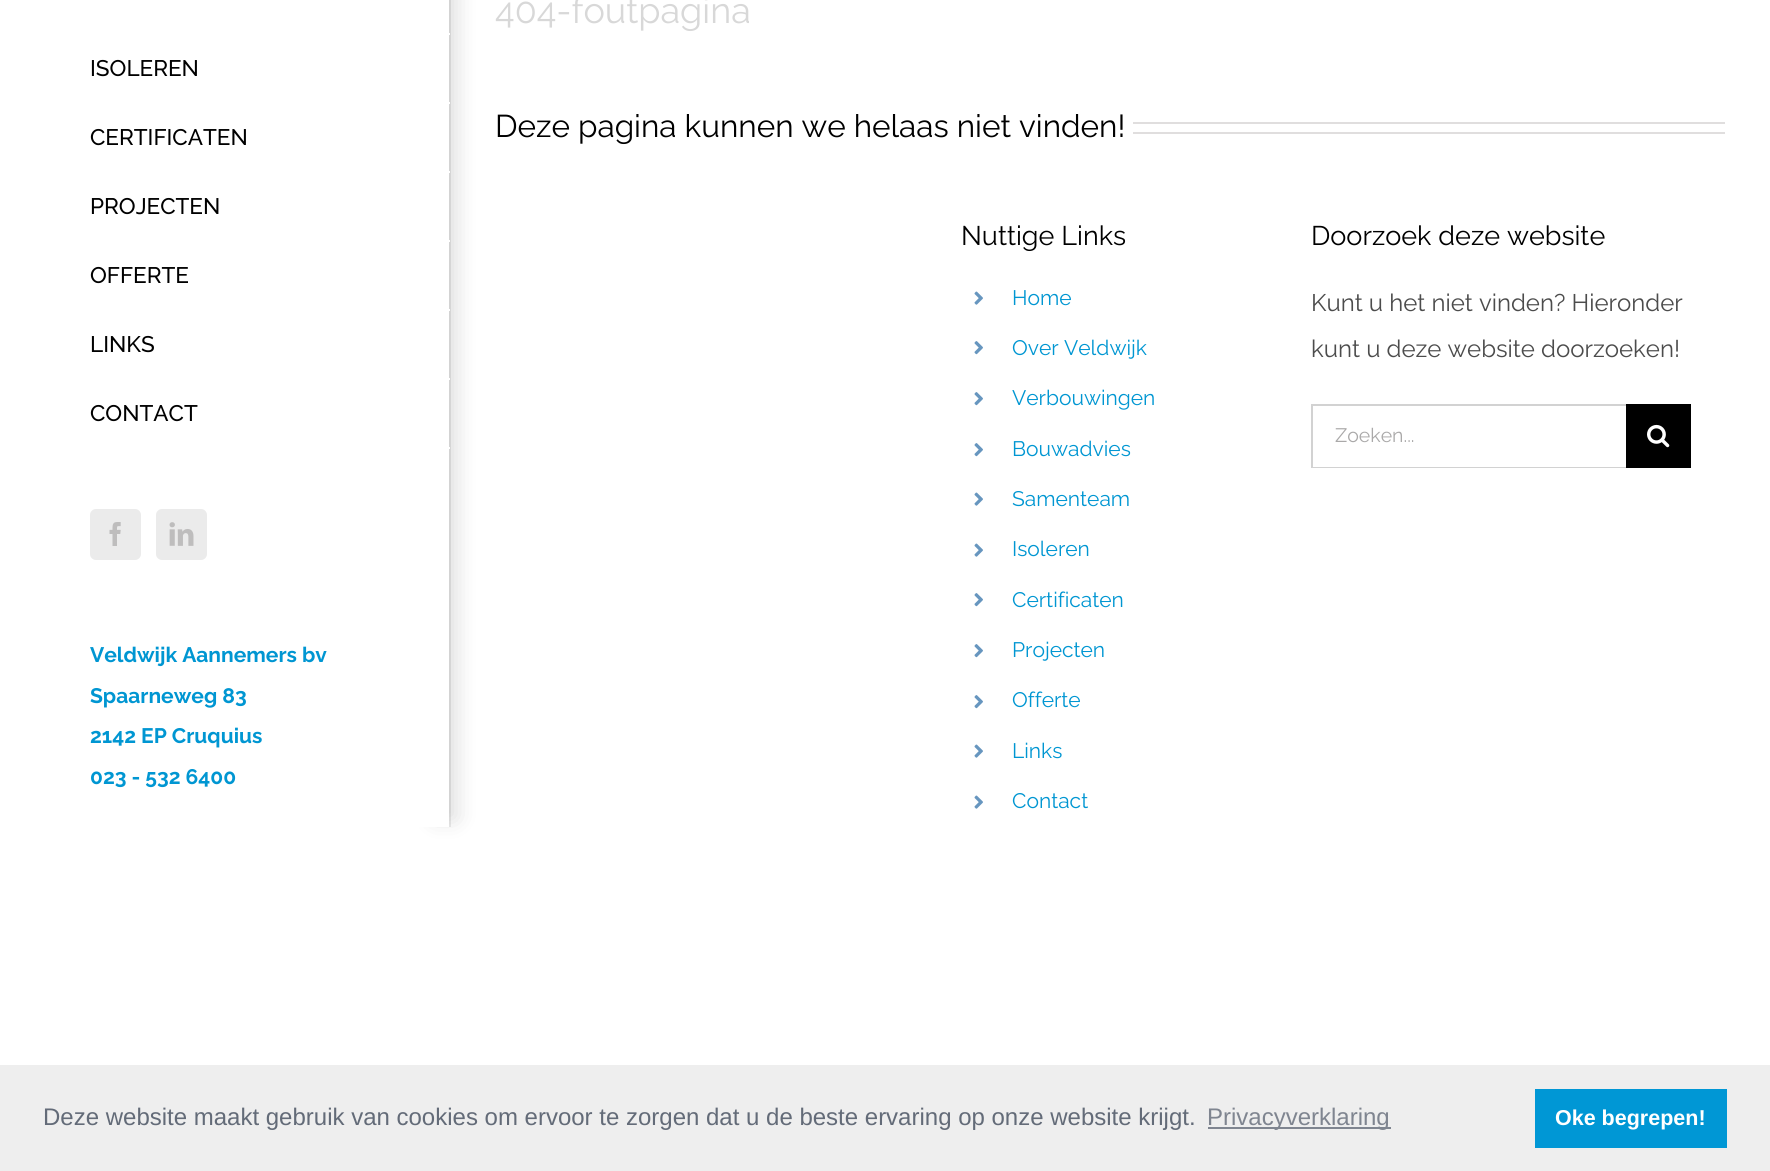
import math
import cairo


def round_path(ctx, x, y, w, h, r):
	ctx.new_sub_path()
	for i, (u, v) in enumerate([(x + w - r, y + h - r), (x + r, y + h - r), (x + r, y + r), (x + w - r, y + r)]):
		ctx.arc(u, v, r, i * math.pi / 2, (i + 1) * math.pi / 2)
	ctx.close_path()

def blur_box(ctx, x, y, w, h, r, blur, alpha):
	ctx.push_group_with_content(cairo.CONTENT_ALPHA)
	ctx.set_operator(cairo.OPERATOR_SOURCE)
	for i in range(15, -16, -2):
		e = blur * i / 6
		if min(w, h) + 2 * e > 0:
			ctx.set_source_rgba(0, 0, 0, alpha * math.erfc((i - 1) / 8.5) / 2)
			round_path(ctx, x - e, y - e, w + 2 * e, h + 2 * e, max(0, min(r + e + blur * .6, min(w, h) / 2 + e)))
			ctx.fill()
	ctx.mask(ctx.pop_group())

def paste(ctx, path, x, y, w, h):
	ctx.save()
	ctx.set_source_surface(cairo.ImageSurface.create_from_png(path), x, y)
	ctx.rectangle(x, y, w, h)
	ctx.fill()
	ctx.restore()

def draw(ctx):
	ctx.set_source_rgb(1, 1, 1)
	ctx.paint()
	ctx.select_font_face('Raleway')
	ctx.set_font_size(36)
	ctx.set_source_rgb(0.847, 0.847, 0.847)
	ctx.move_to(495, 23)
	ctx.show_text('404-foutpagina')
	ctx.set_source_rgb(0.918, 0.918, 0.918)
	ctx.rectangle(449, 0, 2, 827)
	ctx.fill()
	ctx.save()
	ctx.set_fill_rule(cairo.FILL_RULE_EVEN_ODD)
	ctx.new_path()
	ctx.move_to(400, 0)
	ctx.line_to(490, 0)
	ctx.line_to(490, 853)
	ctx.line_to(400, 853)
	ctx.close_path()
	ctx.move_to(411, -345)
	ctx.line_to(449, -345)
	ctx.line_to(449, 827)
	ctx.line_to(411, 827)
	ctx.close_path()
	ctx.clip()
	ctx.set_source_rgb(0, 0, 0)
	blur_box(ctx, 434, -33, 22, 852, 0, 11, 0.14)
	ctx.restore()
	ctx.set_source_rgb(1, 1, 1)
	ctx.rectangle(448, 33, 2, 2)
	ctx.fill()
	ctx.rectangle(448, 102, 2, 2)
	ctx.fill()
	ctx.select_font_face('Raleway Medium')
	ctx.set_font_size(22.5)
	ctx.set_source_rgb(0, 0, 0)
	ctx.move_to(90, 76)
	ctx.show_text('ISOLEREN')
	ctx.set_source_rgb(1, 1, 1)
	ctx.rectangle(448, 171, 2, 2)
	ctx.fill()
	ctx.set_source_rgb(0, 0, 0)
	ctx.move_to(90, 145)
	ctx.show_text('CERTIFICATEN')
	ctx.set_source_rgb(1, 1, 1)
	ctx.rectangle(448, 240, 2, 2)
	ctx.fill()
	ctx.set_source_rgb(0, 0, 0)
	ctx.move_to(90, 214)
	ctx.show_text('PROJECTEN')
	ctx.set_source_rgb(1, 1, 1)
	ctx.rectangle(448, 309, 2, 2)
	ctx.fill()
	ctx.set_source_rgb(0, 0, 0)
	ctx.move_to(90, 283)
	ctx.show_text('OFFERTE')
	ctx.set_source_rgb(1, 1, 1)
	ctx.rectangle(448, 378, 2, 2)
	ctx.fill()
	ctx.set_source_rgb(0, 0, 0)
	ctx.move_to(90, 352)
	ctx.show_text('LINKS')
	ctx.set_source_rgb(1, 1, 1)
	ctx.rectangle(448, 447, 2, 2)
	ctx.fill()
	ctx.set_source_rgb(0, 0, 0)
	ctx.move_to(90, 421)
	ctx.show_text('CONTACT')
	ctx.set_source_rgb(0.918, 0.918, 0.918)
	round_path(ctx, 91, 510, 49, 49, 5)
	ctx.fill_preserve()
	ctx.stroke()
	paste(ctx, 'media/1.png', 109, 522, 12, 24)
	round_path(ctx, 157, 510, 49, 49, 5)
	ctx.fill_preserve()
	ctx.stroke()
	paste(ctx, 'media/2.png', 169, 522, 25, 24)
	ctx.select_font_face('Raleway', cairo.FONT_SLANT_NORMAL, cairo.FONT_WEIGHT_BOLD)
	ctx.set_font_size(21)
	ctx.set_source_rgb(0, 0.588, 0.824)
	for x, y, s in [
		(90, 662, 'Veldwijk Aannemers bv'),
		(90, 703, 'Spaarneweg 83'),
		(90, 743, '2142 EP Cruquius'),
		(90, 784, '023 - 532 6400'),
	]:
		ctx.move_to(x, y)
		ctx.show_text(s)
	ctx.select_font_face('Raleway')
	ctx.set_font_size(31.5)
	ctx.set_source_rgb(0, 0, 0)
	ctx.move_to(495, 137)
	ctx.show_text('Deze pagina kunnen we helaas niet vinden!')
	ctx.set_source_rgb(0.878, 0.871, 0.871)
	ctx.rectangle(1133, 122, 592, 2)
	ctx.fill()
	ctx.rectangle(1133, 132, 592, 2)
	ctx.fill()
	ctx.set_font_size(27)
	ctx.set_source_rgb(0, 0, 0)
	ctx.move_to(961, 245)
	ctx.show_text('Nuttige Links')
	paste(ctx, 'media/3.png', 974, 291, 9, 14)
	ctx.set_font_size(21)
	ctx.set_source_rgb(0, 0.588, 0.824)
	ctx.move_to(1012, 305)
	ctx.show_text('Home')
	paste(ctx, 'media/4.png', 974, 341, 9, 14)
	ctx.move_to(1012, 355)
	ctx.show_text('Over Veldwijk')
	paste(ctx, 'media/4.png', 974, 392, 9, 14)
	ctx.move_to(1012, 405)
	ctx.show_text('Verbouwingen')
	paste(ctx, 'media/4.png', 974, 443, 9, 14)
	ctx.move_to(1012, 456)
	ctx.show_text('Bouwadvies')
	paste(ctx, 'media/3.png', 974, 492, 9, 14)
	ctx.move_to(1012, 506)
	ctx.show_text('Samenteam')
	paste(ctx, 'media/3.png', 974, 543, 9, 14)
	ctx.move_to(1012, 556)
	ctx.show_text('Isoleren')
	paste(ctx, 'media/4.png', 974, 593, 9, 14)
	ctx.move_to(1012, 607)
	ctx.show_text('Certificaten')
	paste(ctx, 'media/4.png', 974, 644, 9, 14)
	ctx.move_to(1012, 657)
	ctx.show_text('Projecten')
	paste(ctx, 'media/4.png', 974, 695, 9, 14)
	ctx.move_to(1012, 707)
	ctx.show_text('Offerte')
	paste(ctx, 'media/3.png', 974, 744, 9, 14)
	ctx.move_to(1012, 758)
	ctx.show_text('Links')
	paste(ctx, 'media/3.png', 974, 795, 9, 14)
	ctx.move_to(1012, 808)
	ctx.show_text('Contact')
	ctx.set_font_size(27)
	ctx.set_source_rgb(0, 0, 0)
	ctx.move_to(1311, 245)
	ctx.show_text('Doorzoek deze website')
	ctx.set_font_size(24)
	ctx.set_source_rgb(0.298, 0.298, 0.298)
	ctx.move_to(1311, 311)
	ctx.show_text('Kunt u het niet vinden? Hieronder')
	ctx.move_to(1311, 357)
	ctx.show_text('kunt u deze website doorzoeken!')
	ctx.set_source_rgb(0.824, 0.824, 0.824)
	ctx.rectangle(1311, 404, 315, 2)
	ctx.rectangle(1311, 467, 315, 1)
	ctx.rectangle(1311, 404, 2, 64)
	ctx.fill()
	ctx.set_font_size(19.5)
	ctx.set_source_rgb(0.667, 0.663, 0.663)
	ctx.move_to(1335, 442)
	ctx.show_text('Zoeken...')
	ctx.set_source_rgb(0, 0, 0)
	ctx.rectangle(1626, 404, 65, 64)
	ctx.fill()
	paste(ctx, 'media/5.png', 1647, 424, 23, 24)
	ctx.set_source_rgb(0.933, 0.933, 0.933)
	ctx.rectangle(0, 1065, 1770, 106)
	ctx.fill()
	ctx.select_font_face('Liberation Sans')
	ctx.set_font_size(24)
	ctx.set_source_rgb(0.388, 0.42, 0.471)
	ctx.move_to(43, 1125)
	ctx.show_text('Deze website maakt gebruik van cookies om ervoor te zorgen dat u de beste ervaring op onze website krijgt.')
	ctx.set_source_rgb(0.498, 0.522, 0.565)
	ctx.rectangle(1208, 1127, 183, 2)
	ctx.fill()
	ctx.move_to(1207, 1125)
	ctx.show_text('Privacyverklaring')
	ctx.set_source_rgb(0, 0.592, 0.835)
	ctx.rectangle(1535, 1089, 192, 59)
	ctx.fill()
	ctx.select_font_face('Liberation Sans', cairo.FONT_SLANT_NORMAL, cairo.FONT_WEIGHT_BOLD)
	ctx.set_font_size(21.5)
	ctx.set_source_rgb(1, 1, 1)
	ctx.move_to(1555, 1125)
	ctx.show_text('Oke begrepen!')


surface = cairo.ImageSurface(cairo.FORMAT_RGB24, 1770, 1171)
ctx = cairo.Context(surface)
options = cairo.FontOptions()
options.set_hint_metrics(cairo.HINT_METRICS_OFF)
options.set_hint_style(cairo.HINT_STYLE_NONE)
ctx.set_font_options(options)
ctx.set_miter_limit(4)
draw(ctx)
surface.write_to_png('image.png')
